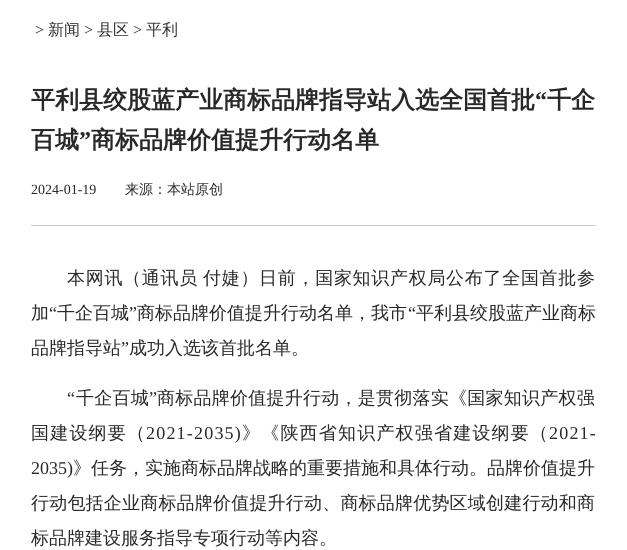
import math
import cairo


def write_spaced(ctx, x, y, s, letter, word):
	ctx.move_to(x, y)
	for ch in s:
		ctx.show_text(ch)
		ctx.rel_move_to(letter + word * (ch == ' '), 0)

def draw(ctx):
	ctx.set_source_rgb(1, 1, 1)
	ctx.paint()
	ctx.select_font_face('Liberation Serif')
	ctx.set_font_size(16)
	ctx.set_source_rgb(0.157, 0.157, 0.157)
	ctx.move_to(35, 35)
	ctx.show_text('>')
	ctx.select_font_face('WenQuanYi Zen Hei Medium')
	ctx.set_source_rgb(0.2, 0.2, 0.2)
	ctx.move_to(48, 35)
	ctx.show_text('新闻')
	ctx.select_font_face('Liberation Serif')
	ctx.set_source_rgb(0.157, 0.157, 0.157)
	ctx.move_to(84, 35)
	ctx.show_text('>')
	ctx.select_font_face('WenQuanYi Zen Hei Medium')
	ctx.set_source_rgb(0.2, 0.2, 0.2)
	ctx.move_to(97, 35)
	ctx.show_text('县区')
	ctx.select_font_face('Liberation Serif')
	ctx.set_source_rgb(0.157, 0.157, 0.157)
	ctx.move_to(133, 35)
	ctx.show_text('>')
	ctx.select_font_face('WenQuanYi Zen Hei Medium')
	ctx.set_source_rgb(0.2, 0.2, 0.2)
	ctx.move_to(146, 35)
	ctx.show_text('平利')
	ctx.select_font_face('WenQuanYi Zen Hei', cairo.FONT_SLANT_NORMAL, cairo.FONT_WEIGHT_BOLD)
	ctx.set_font_size(24)
	ctx.set_source_rgb(0.157, 0.157, 0.157)
	ctx.move_to(31, 108)
	ctx.show_text('平利县绞股蓝产业商标品牌指导站入选全国首批')
	ctx.select_font_face('Liberation Serif', cairo.FONT_SLANT_NORMAL, cairo.FONT_WEIGHT_BOLD)
	ctx.move_to(535, 108)
	ctx.show_text('“')
	ctx.select_font_face('WenQuanYi Zen Hei', cairo.FONT_SLANT_NORMAL, cairo.FONT_WEIGHT_BOLD)
	ctx.move_to(547, 108)
	ctx.show_text('千企')
	ctx.move_to(31, 148)
	ctx.show_text('百城')
	ctx.select_font_face('Liberation Serif', cairo.FONT_SLANT_NORMAL, cairo.FONT_WEIGHT_BOLD)
	ctx.move_to(79, 148)
	ctx.show_text('”')
	ctx.select_font_face('WenQuanYi Zen Hei', cairo.FONT_SLANT_NORMAL, cairo.FONT_WEIGHT_BOLD)
	ctx.move_to(91, 148)
	ctx.show_text('商标品牌价值提升行动名单')
	ctx.select_font_face('Liberation Serif')
	ctx.set_font_size(14)
	ctx.move_to(31, 194)
	ctx.show_text('2024-01-19')
	ctx.select_font_face('WenQuanYi Zen Hei Medium')
	ctx.move_to(125, 194)
	ctx.show_text('来源：本站原创')
	ctx.set_source_rgb(0.8, 0.8, 0.8)
	ctx.rectangle(31, 225, 565, 1)
	ctx.fill()
	ctx.set_font_size(18)
	ctx.set_source_rgb(0.157, 0.157, 0.157)
	write_spaced(ctx, 67, 284, '本网讯（通讯员 付婕）日前，国家知识产权局公布了全国首批参', 0.7, -1)
	ctx.move_to(31, 319)
	ctx.show_text('加')
	ctx.select_font_face('Liberation Serif')
	ctx.move_to(49, 319)
	ctx.show_text('“')
	ctx.select_font_face('WenQuanYi Zen Hei Medium')
	ctx.move_to(57, 319)
	ctx.show_text('千企百城')
	ctx.select_font_face('Liberation Serif')
	ctx.move_to(129, 319)
	ctx.show_text('”')
	ctx.select_font_face('WenQuanYi Zen Hei Medium')
	ctx.move_to(137, 319)
	ctx.show_text('商标品牌价值提升行动名单，我市')
	ctx.select_font_face('Liberation Serif')
	ctx.move_to(408, 319)
	ctx.show_text('“')
	ctx.select_font_face('WenQuanYi Zen Hei Medium')
	ctx.move_to(416, 319)
	ctx.show_text('平利县绞股蓝产业商标')
	ctx.move_to(31, 354)
	ctx.show_text('品牌指导站')
	ctx.select_font_face('Liberation Serif')
	ctx.move_to(121, 354)
	ctx.show_text('”')
	ctx.select_font_face('WenQuanYi Zen Hei Medium')
	ctx.move_to(129, 354)
	ctx.show_text('成功入选该首批名单。')
	ctx.select_font_face('Liberation Serif')
	write_spaced(ctx, 67, 404, '“', 0.25, 0)
	ctx.select_font_face('WenQuanYi Zen Hei Medium')
	write_spaced(ctx, 76, 404, '千企百城', 0.25, 0)
	ctx.select_font_face('Liberation Serif')
	write_spaced(ctx, 149, 404, '”', 0.25, 0)
	ctx.select_font_face('WenQuanYi Zen Hei Medium')
	write_spaced(ctx, 157, 404, '商标品牌价值提升行动，是贯彻落实《国家知识产权强', 0.25, 0)
	write_spaced(ctx, 31, 439, '国建设纲要（', 1.2, 0)
	ctx.select_font_face('Liberation Serif')
	write_spaced(ctx, 146, 439, '2021-2035)', 1.2, 0)
	ctx.select_font_face('WenQuanYi Zen Hei Medium')
	write_spaced(ctx, 242, 439, '》《陕西省知识产权强省建设纲要（', 1.2, 0)
	ctx.select_font_face('Liberation Serif')
	write_spaced(ctx, 549, 439, '2021-', 1.2, 0)
	ctx.move_to(31, 474)
	ctx.show_text('2035)')
	ctx.select_font_face('WenQuanYi Zen Hei Medium')
	ctx.move_to(73, 474)
	ctx.show_text('》任务，实施商标品牌战略的重要措施和具体行动。品牌价值提升')
	write_spaced(ctx, 31, 509, '行动包括企业商标品牌价值提升行动、商标品牌优势区域创建行动和商', 0.2, 0)
	ctx.move_to(31, 544)
	ctx.show_text('标品牌建设服务指导专项行动等内容。')


surface = cairo.ImageSurface(cairo.FORMAT_RGB24, 627, 550)
ctx = cairo.Context(surface)
options = cairo.FontOptions()
options.set_hint_metrics(cairo.HINT_METRICS_OFF)
options.set_hint_style(cairo.HINT_STYLE_NONE)
ctx.set_font_options(options)
ctx.set_miter_limit(4)
draw(ctx)
surface.write_to_png('image.png')
